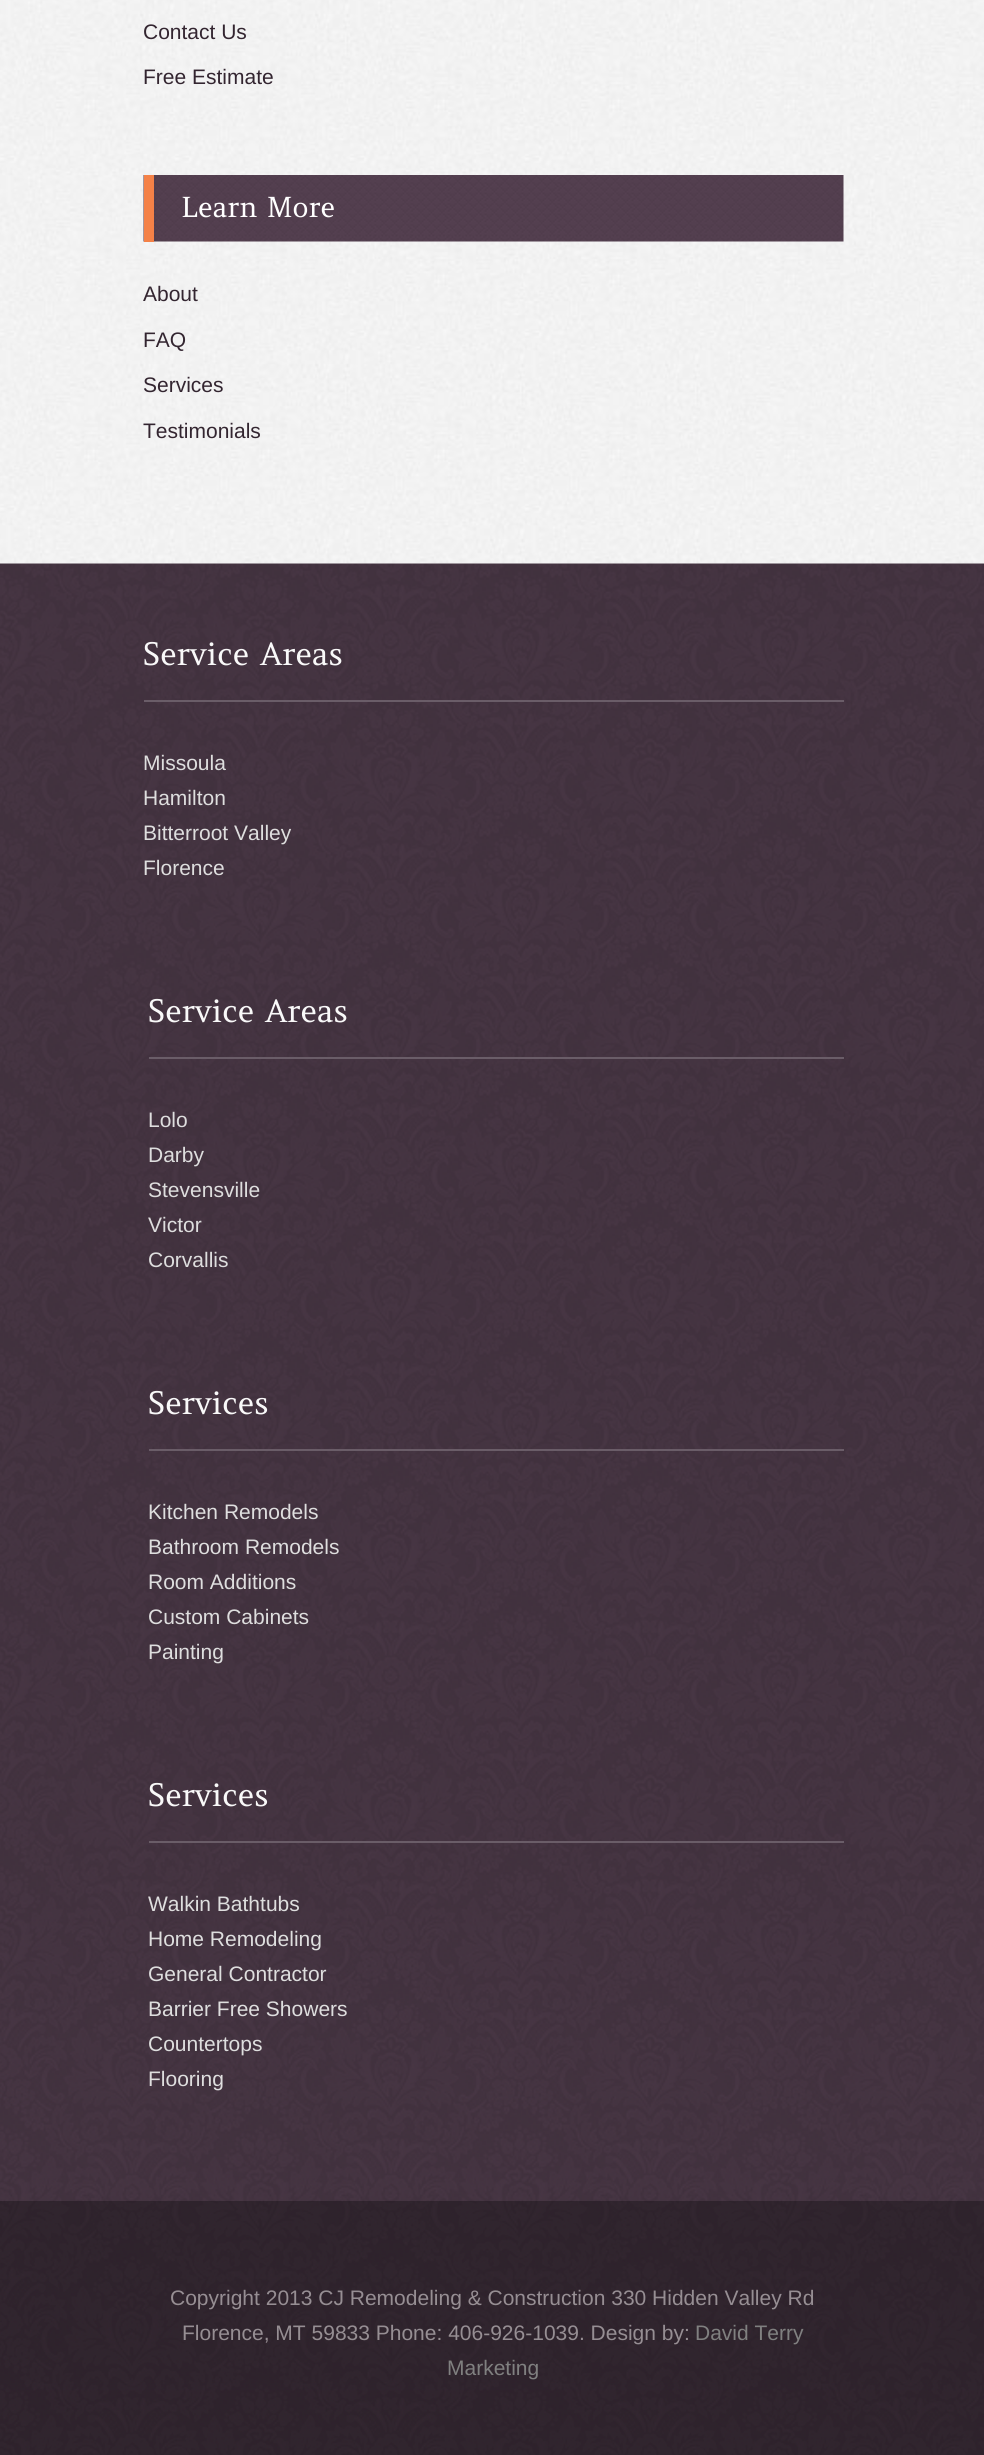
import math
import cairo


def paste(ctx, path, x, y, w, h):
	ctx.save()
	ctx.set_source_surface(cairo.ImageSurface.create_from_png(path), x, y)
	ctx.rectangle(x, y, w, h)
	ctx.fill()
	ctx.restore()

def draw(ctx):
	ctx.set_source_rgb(1, 1, 1)
	ctx.paint()
	paste(ctx, 'media/1.png', 0, 0, 984, 564)
	ctx.select_font_face('Liberation Sans')
	ctx.set_font_size(21)
	ctx.set_source_rgb(0.2, 0.145, 0.188)
	ctx.move_to(143, 39)
	ctx.show_text('Contact Us')
	ctx.move_to(143, 84)
	ctx.show_text('Free Estimate')
	paste(ctx, 'media/2.png', 143, 175, 701, 67)
	ctx.set_source_rgb(0.957, 0.506, 0.278)
	ctx.rectangle(144, 175, 10, 67)
	ctx.fill()
	ctx.select_font_face('Amethysta')
	ctx.set_font_size(28)
	ctx.set_source_rgb(1, 1, 1)
	ctx.move_to(181, 217)
	ctx.show_text('Learn More')
	ctx.select_font_face('Liberation Sans')
	ctx.set_font_size(21)
	ctx.set_source_rgb(0.2, 0.145, 0.188)
	for x, y, s in [
		(143, 301, 'About'),
		(143, 347, 'FAQ'),
		(143, 392, 'Services'),
		(143, 438, 'Testimonials'),
	]:
		ctx.move_to(x, y)
		ctx.show_text(s)
	paste(ctx, 'media/3.png', 0, 563, 984, 1892)
	ctx.set_source_rgb(0.416, 0.365, 0.408)
	ctx.rectangle(144, 700, 700, 2)
	ctx.fill()
	ctx.select_font_face('Amethysta')
	ctx.set_font_size(31.5)
	ctx.set_source_rgb(0.973, 0.973, 0.973)
	ctx.move_to(143, 665)
	ctx.show_text('Service Areas')
	ctx.select_font_face('Liberation Sans')
	ctx.set_font_size(21)
	ctx.set_source_rgb(0.871, 0.871, 0.871)
	for x, y, s in [
		(143, 770, 'Missoula'),
		(143, 805, 'Hamilton'),
		(143, 840, 'Bitterroot Valley'),
		(143, 875, 'Florence'),
	]:
		ctx.move_to(x, y)
		ctx.show_text(s)
	ctx.set_source_rgb(0.416, 0.365, 0.408)
	ctx.rectangle(149, 1057, 695, 2)
	ctx.fill()
	ctx.select_font_face('Amethysta')
	ctx.set_font_size(31.5)
	ctx.set_source_rgb(0.973, 0.973, 0.973)
	ctx.move_to(148, 1022)
	ctx.show_text('Service Areas')
	ctx.select_font_face('Liberation Sans')
	ctx.set_font_size(21)
	ctx.set_source_rgb(0.871, 0.871, 0.871)
	for x, y, s in [
		(148, 1127, 'Lolo'),
		(148, 1162, 'Darby'),
		(148, 1197, 'Stevensville'),
		(148, 1232, 'Victor'),
		(148, 1267, 'Corvallis'),
	]:
		ctx.move_to(x, y)
		ctx.show_text(s)
	ctx.set_source_rgb(0.416, 0.365, 0.408)
	ctx.rectangle(149, 1449, 695, 2)
	ctx.fill()
	ctx.select_font_face('Amethysta')
	ctx.set_font_size(31.5)
	ctx.set_source_rgb(0.973, 0.973, 0.973)
	ctx.move_to(148, 1414)
	ctx.show_text('Services')
	ctx.select_font_face('Liberation Sans')
	ctx.set_font_size(21)
	ctx.set_source_rgb(0.871, 0.871, 0.871)
	for x, y, s in [
		(148, 1519, 'Kitchen Remodels'),
		(148, 1554, 'Bathroom Remodels'),
		(148, 1589, 'Room Additions'),
		(148, 1624, 'Custom Cabinets'),
		(148, 1659, 'Painting'),
	]:
		ctx.move_to(x, y)
		ctx.show_text(s)
	ctx.set_source_rgb(0.416, 0.365, 0.408)
	ctx.rectangle(149, 1841, 695, 2)
	ctx.fill()
	ctx.select_font_face('Amethysta')
	ctx.set_font_size(31.5)
	ctx.set_source_rgb(0.973, 0.973, 0.973)
	ctx.move_to(148, 1806)
	ctx.show_text('Services')
	ctx.select_font_face('Liberation Sans')
	ctx.set_font_size(21)
	ctx.set_source_rgb(0.871, 0.871, 0.871)
	for x, y, s in [
		(148, 1911, 'Walkin Bathtubs'),
		(148, 1946, 'Home Remodeling'),
		(148, 1981, 'General Contractor'),
		(148, 2016, 'Barrier Free Showers'),
		(148, 2051, 'Countertops'),
		(148, 2086, 'Flooring'),
	]:
		ctx.move_to(x, y)
		ctx.show_text(s)
	ctx.set_source_rgba(0, 0, 0, 0.3)
	ctx.rectangle(0, 2201, 984, 254)
	ctx.fill()
	ctx.set_source_rgb(0.588, 0.557, 0.576)
	ctx.move_to(170, 2305)
	ctx.show_text('Copyright 2013 CJ Remodeling & Construction 330 Hidden Valley Rd')
	ctx.move_to(182, 2340)
	ctx.show_text('Florence, MT 59833 Phone: 406-926-1039. Design by:')
	ctx.set_source_rgb(0.502, 0.502, 0.502)
	ctx.move_to(695, 2340)
	ctx.show_text('David Terry')
	ctx.move_to(447, 2375)
	ctx.show_text('Marketing')


surface = cairo.ImageSurface(cairo.FORMAT_RGB24, 984, 2455)
ctx = cairo.Context(surface)
options = cairo.FontOptions()
options.set_hint_metrics(cairo.HINT_METRICS_OFF)
options.set_hint_style(cairo.HINT_STYLE_NONE)
ctx.set_font_options(options)
ctx.set_miter_limit(4)
draw(ctx)
surface.write_to_png('image.png')
